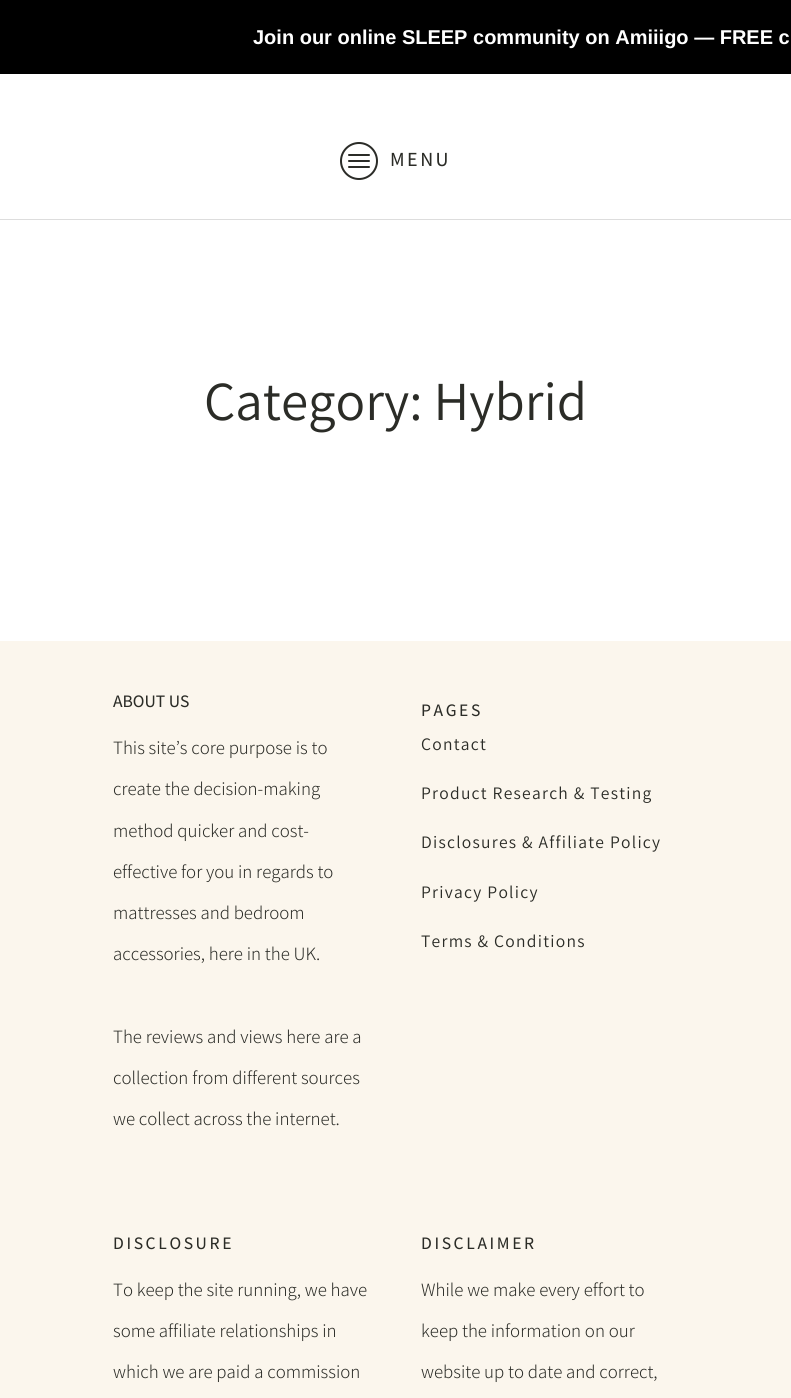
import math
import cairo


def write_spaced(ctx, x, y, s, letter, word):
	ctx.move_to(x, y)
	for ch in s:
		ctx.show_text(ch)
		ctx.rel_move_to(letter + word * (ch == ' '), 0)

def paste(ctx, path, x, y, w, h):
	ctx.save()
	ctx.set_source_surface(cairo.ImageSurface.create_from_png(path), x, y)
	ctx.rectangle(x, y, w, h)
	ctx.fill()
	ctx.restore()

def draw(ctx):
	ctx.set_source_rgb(1, 1, 1)
	ctx.paint()
	ctx.set_source_rgb(0, 0, 0)
	ctx.rectangle(0, 0, 791, 74)
	ctx.fill()
	ctx.select_font_face('Liberation Sans', cairo.FONT_SLANT_NORMAL, cairo.FONT_WEIGHT_BOLD)
	ctx.set_font_size(20)
	ctx.set_source_rgb(1, 1, 1)
	ctx.move_to(253, 44)
	ctx.show_text('Join our online SLEEP community on Amiiigo — FREE c')
	ctx.set_source_rgb(0.867, 0.867, 0.867)
	ctx.rectangle(0, 219, 791, 1)
	ctx.fill()
	paste(ctx, 'media/1.png', 340, 142, 38, 38)
	ctx.select_font_face('Assistant Medium')
	ctx.set_source_rgb(0.169, 0.173, 0.153)
	write_spaced(ctx, 390, 166, 'MENU', 2.5, 0)
	ctx.select_font_face('Assistant')
	ctx.set_font_size(55)
	ctx.move_to(204, 420)
	ctx.show_text('Category: Hybrid')
	ctx.set_source_rgb(0.984, 0.961, 0.929)
	ctx.rectangle(0, 641, 791, 757)
	ctx.fill()
	ctx.select_font_face('Assistant Medium')
	ctx.set_font_size(17.5)
	ctx.set_source_rgb(0.169, 0.173, 0.153)
	ctx.move_to(113, 707)
	ctx.show_text('ABOUT US')
	ctx.select_font_face('Assistant Light')
	ctx.set_font_size(18.75)
	for x, y, s in [
		(113, 754, 'This site’s core purpose is to'),
		(113, 795, 'create the decision-making'),
		(113, 837, 'method quicker and cost-'),
		(113, 878, 'effective for you in regards to'),
		(113, 919, 'mattresses and bedroom'),
		(113, 960, 'accessories, here in the UK.'),
		(113, 1043, 'The reviews and views here are a'),
		(113, 1084, 'collection from different sources'),
		(113, 1125, 'we collect across the internet.'),
	]:
		ctx.move_to(x, y)
		ctx.show_text(s)
	ctx.select_font_face('Assistant Medium')
	ctx.set_font_size(17.5)
	write_spaced(ctx, 421, 716, 'PAGES', 2.6, 0)
	ctx.select_font_face('Assistant')
	for x, y, s in [
		(421, 750, 'Contact'),
		(421, 799, 'Product Research & Testing'),
		(421, 848, 'Disclosures & Affiliate Policy'),
		(421, 898, 'Privacy Policy'),
		(421, 947, 'Terms & Conditions'),
	]:
		write_spaced(ctx, x, y, s, 1.25, 0)
	ctx.select_font_face('Assistant Medium')
	write_spaced(ctx, 113, 1249, 'DISCLOSURE', 2.6, 0)
	ctx.select_font_face('Assistant Light')
	ctx.set_font_size(18.75)
	for x, y, s in [
		(113, 1296, 'To keep the site running, we have'),
		(113, 1337, 'some affiliate relationships in'),
		(113, 1378, 'which we are paid a commission'),
	]:
		ctx.move_to(x, y)
		ctx.show_text(s)
	ctx.select_font_face('Assistant Medium')
	ctx.set_font_size(17.5)
	write_spaced(ctx, 421, 1249, 'DISCLAIMER', 2.6, 0)
	ctx.select_font_face('Assistant Light')
	ctx.set_font_size(18.75)
	for x, y, s in [
		(421, 1296, 'While we make every effort to'),
		(421, 1337, 'keep the information on our'),
		(421, 1378, 'website up to date and correct,'),
	]:
		ctx.move_to(x, y)
		ctx.show_text(s)


surface = cairo.ImageSurface(cairo.FORMAT_RGB24, 791, 1398)
ctx = cairo.Context(surface)
options = cairo.FontOptions()
options.set_hint_metrics(cairo.HINT_METRICS_OFF)
options.set_hint_style(cairo.HINT_STYLE_NONE)
ctx.set_font_options(options)
ctx.set_miter_limit(4)
draw(ctx)
surface.write_to_png('image.png')
